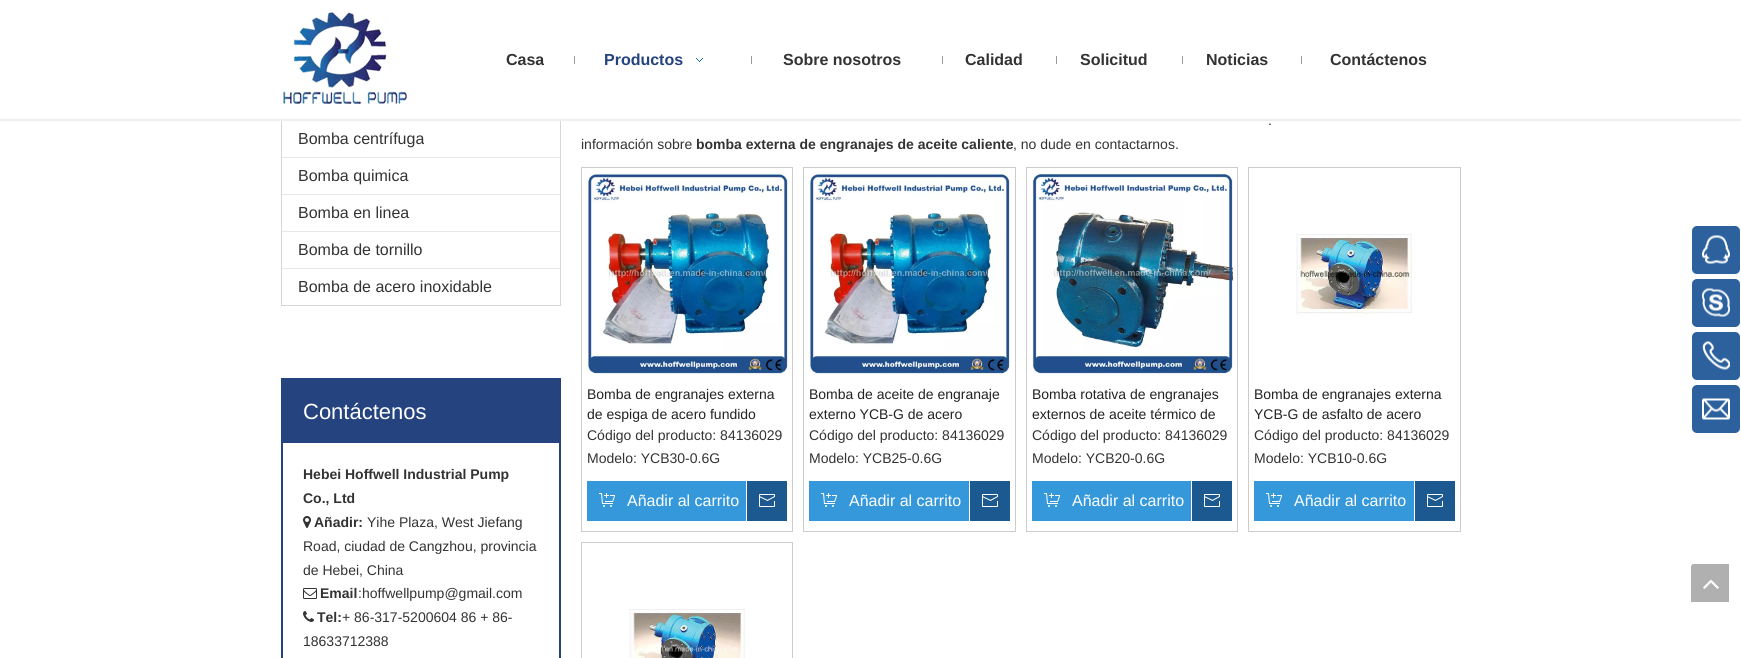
import math
import cairo


def round_path(ctx, x, y, w, h, r):
	ctx.new_sub_path()
	for i, (u, v) in enumerate([(x + w - r, y + h - r), (x + r, y + h - r), (x + r, y + r), (x + w - r, y + r)]):
		ctx.arc(u, v, r, i * math.pi / 2, (i + 1) * math.pi / 2)
	ctx.close_path()

def paste(ctx, path, x, y, w, h):
	ctx.save()
	ctx.set_source_surface(cairo.ImageSurface.create_from_png(path), x, y)
	ctx.rectangle(x, y, w, h)
	ctx.fill()
	ctx.restore()

def draw(ctx):
	ctx.set_source_rgb(1, 1, 1)
	ctx.paint()
	ctx.rectangle(281.5, -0.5, 279, 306)
	ctx.set_source_rgb(0.839, 0.839, 0.839)
	ctx.set_line_width(1)
	ctx.stroke()
	ctx.set_source_rgb(1, 1, 1)
	ctx.rectangle(281, 0, 280, 119)
	ctx.fill()
	ctx.set_source_rgb(0.933, 0.933, 0.933)
	ctx.rectangle(0, 119, 1741, 2)
	ctx.fill()
	paste(ctx, 'media/1.png', 283, 12, 124, 93)
	ctx.select_font_face('Liberation Sans', cairo.FONT_SLANT_NORMAL, cairo.FONT_WEIGHT_BOLD)
	ctx.set_font_size(16)
	ctx.set_source_rgb(0.2, 0.2, 0.2)
	ctx.move_to(506, 65)
	ctx.show_text('Casa')
	ctx.set_source_rgb(0.6, 0.6, 0.6)
	ctx.rectangle(574, 56, 1, 8)
	ctx.fill()
	ctx.set_source_rgb(0.141, 0.263, 0.498)
	ctx.move_to(604, 65)
	ctx.show_text('Productos')
	paste(ctx, 'media/2.png', 696, 58, 7, 4)
	ctx.set_source_rgb(0.6, 0.6, 0.6)
	ctx.rectangle(751, 56, 1, 8)
	ctx.fill()
	ctx.set_source_rgb(0.2, 0.2, 0.2)
	ctx.move_to(783, 65)
	ctx.show_text('Sobre nosotros')
	ctx.set_source_rgb(0.6, 0.6, 0.6)
	ctx.rectangle(942, 56, 1, 8)
	ctx.fill()
	ctx.set_source_rgb(0.2, 0.2, 0.2)
	ctx.move_to(965, 65)
	ctx.show_text('Calidad')
	ctx.set_source_rgb(0.6, 0.6, 0.6)
	ctx.rectangle(1056, 56, 1, 8)
	ctx.fill()
	ctx.set_source_rgb(0.2, 0.2, 0.2)
	ctx.move_to(1080, 65)
	ctx.show_text('Solicitud')
	ctx.set_source_rgb(0.6, 0.6, 0.6)
	ctx.rectangle(1182, 56, 1, 8)
	ctx.fill()
	ctx.set_source_rgb(0.2, 0.2, 0.2)
	ctx.move_to(1206, 65)
	ctx.show_text('Noticias')
	ctx.set_source_rgb(0.6, 0.6, 0.6)
	ctx.rectangle(1301, 56, 1, 8)
	ctx.fill()
	ctx.set_source_rgb(0.2, 0.2, 0.2)
	ctx.move_to(1330, 65)
	ctx.show_text('Contáctenos')
	ctx.select_font_face('Liberation Sans')
	ctx.move_to(298, 144)
	ctx.show_text('Bomba centrífuga')
	ctx.set_source_rgb(0.906, 0.906, 0.906)
	ctx.rectangle(282, 157, 278, 1)
	ctx.fill()
	ctx.set_source_rgb(0.2, 0.2, 0.2)
	ctx.move_to(298, 181)
	ctx.show_text('Bomba quimica')
	ctx.set_source_rgb(0.906, 0.906, 0.906)
	ctx.rectangle(282, 194, 278, 1)
	ctx.fill()
	ctx.set_source_rgb(0.2, 0.2, 0.2)
	ctx.move_to(298, 218)
	ctx.show_text('Bomba en linea')
	ctx.set_source_rgb(0.906, 0.906, 0.906)
	ctx.rectangle(282, 231, 278, 1)
	ctx.fill()
	ctx.set_source_rgb(0.2, 0.2, 0.2)
	ctx.move_to(298, 255)
	ctx.show_text('Bomba de tornillo')
	ctx.set_source_rgb(0.906, 0.906, 0.906)
	ctx.rectangle(282, 268, 278, 1)
	ctx.fill()
	ctx.set_source_rgb(0.2, 0.2, 0.2)
	ctx.move_to(298, 292)
	ctx.show_text('Bomba de acero inoxidable')
	ctx.rectangle(282, 379, 278, 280)
	ctx.set_source_rgb(0.141, 0.263, 0.498)
	ctx.set_line_width(2)
	ctx.stroke()
	ctx.rectangle(283, 380, 276, 63)
	ctx.fill()
	ctx.set_font_size(22)
	ctx.set_source_rgb(1, 1, 1)
	ctx.move_to(303, 419)
	ctx.show_text('Contáctenos')
	ctx.select_font_face('Liberation Sans', cairo.FONT_SLANT_NORMAL, cairo.FONT_WEIGHT_BOLD)
	ctx.set_font_size(14)
	ctx.set_source_rgb(0.2, 0.2, 0.2)
	ctx.move_to(303, 479)
	ctx.show_text('Hebei Hoffwell Industrial Pump')
	ctx.move_to(303, 503)
	ctx.show_text('Co., Ltd')
	paste(ctx, 'media/3.png', 303, 516, 8, 12)
	ctx.move_to(314, 527)
	ctx.show_text('Añadir:')
	ctx.select_font_face('Liberation Sans')
	for x, y, s in [
		(367, 527, 'Yihe Plaza, West Jiefang'),
		(303, 551, 'Road, ciudad de Cangzhou, provincia'),
		(303, 575, 'de Hebei, China'),
	]:
		ctx.move_to(x, y)
		ctx.show_text(s)
	paste(ctx, 'media/4.png', 303, 588, 14, 11)
	ctx.select_font_face('Liberation Sans', cairo.FONT_SLANT_NORMAL, cairo.FONT_WEIGHT_BOLD)
	ctx.move_to(320, 598)
	ctx.show_text('Email')
	ctx.select_font_face('Liberation Sans')
	ctx.move_to(358, 598)
	ctx.show_text(':hoffwellpump@gmail.com')
	paste(ctx, 'media/5.png', 303, 611, 11, 11)
	ctx.select_font_face('Liberation Sans', cairo.FONT_SLANT_NORMAL, cairo.FONT_WEIGHT_BOLD)
	ctx.move_to(317, 622)
	ctx.show_text('Tel:')
	ctx.select_font_face('Liberation Sans')
	for x, y, s in [
		(342, 622, '+ 86-317-5200604 86 + 86-'),
		(303, 646, '18633712388'),
		(1268, 125, '.'),
		(581, 149, 'información sobre'),
	]:
		ctx.move_to(x, y)
		ctx.show_text(s)
	ctx.select_font_face('Liberation Sans', cairo.FONT_SLANT_NORMAL, cairo.FONT_WEIGHT_BOLD)
	ctx.move_to(696, 149)
	ctx.show_text('bomba externa de engranajes de aceite caliente')
	ctx.select_font_face('Liberation Sans')
	ctx.move_to(1013, 149)
	ctx.show_text(', no dude en contactarnos.')
	ctx.rectangle(581.5, 167.5, 211, 364)
	ctx.set_source_rgb(0.8, 0.8, 0.8)
	ctx.set_line_width(1)
	ctx.stroke()
	paste(ctx, 'media/6.png', 587, 173, 201, 201)
	ctx.set_source_rgb(0.133, 0.133, 0.133)
	ctx.move_to(587, 399)
	ctx.show_text('Bomba de engranajes externa')
	ctx.move_to(587, 419)
	ctx.show_text('de espiga de acero fundido')
	ctx.set_source_rgb(0.2, 0.2, 0.2)
	ctx.move_to(587, 440)
	ctx.show_text('Código del producto: 84136029')
	ctx.move_to(587, 463)
	ctx.show_text('Modelo: YCB30-0.6G')
	ctx.set_source_rgb(0.204, 0.596, 0.859)
	ctx.rectangle(587, 481, 159, 40)
	ctx.fill()
	paste(ctx, 'media/7.png', 599, 493, 16, 14)
	ctx.set_font_size(16)
	ctx.set_source_rgb(1, 1, 1)
	ctx.move_to(627, 506)
	ctx.show_text('Añadir al carrito')
	ctx.set_source_rgb(0.114, 0.349, 0.569)
	ctx.rectangle(747, 481, 40, 40)
	ctx.fill()
	paste(ctx, 'media/8.png', 759, 494, 16, 13)
	ctx.rectangle(803.5, 167.5, 212, 364)
	ctx.set_source_rgb(0.8, 0.8, 0.8)
	ctx.stroke()
	paste(ctx, 'media/6.png', 809, 173, 201, 201)
	ctx.set_font_size(14)
	ctx.set_source_rgb(0.133, 0.133, 0.133)
	ctx.move_to(809, 399)
	ctx.show_text('Bomba de aceite de engranaje')
	ctx.move_to(809, 419)
	ctx.show_text('externo YCB-G de acero')
	ctx.set_source_rgb(0.2, 0.2, 0.2)
	ctx.move_to(809, 440)
	ctx.show_text('Código del producto: 84136029')
	ctx.move_to(809, 463)
	ctx.show_text('Modelo: YCB25-0.6G')
	ctx.set_source_rgb(0.204, 0.596, 0.859)
	ctx.rectangle(809, 481, 160, 40)
	ctx.fill()
	paste(ctx, 'media/7.png', 821, 493, 16, 14)
	ctx.set_font_size(16)
	ctx.set_source_rgb(1, 1, 1)
	ctx.move_to(849, 506)
	ctx.show_text('Añadir al carrito')
	ctx.set_source_rgb(0.114, 0.349, 0.569)
	ctx.rectangle(970, 481, 40, 40)
	ctx.fill()
	paste(ctx, 'media/8.png', 982, 494, 16, 13)
	ctx.rectangle(1026.5, 167.5, 211, 364)
	ctx.set_source_rgb(0.8, 0.8, 0.8)
	ctx.stroke()
	paste(ctx, 'media/9.png', 1032, 173, 201, 201)
	ctx.set_font_size(14)
	ctx.set_source_rgb(0.133, 0.133, 0.133)
	ctx.move_to(1032, 399)
	ctx.show_text('Bomba rotativa de engranajes')
	ctx.move_to(1032, 419)
	ctx.show_text('externos de aceite térmico de')
	ctx.set_source_rgb(0.2, 0.2, 0.2)
	ctx.move_to(1032, 440)
	ctx.show_text('Código del producto: 84136029')
	ctx.move_to(1032, 463)
	ctx.show_text('Modelo: YCB20-0.6G')
	ctx.set_source_rgb(0.204, 0.596, 0.859)
	ctx.rectangle(1032, 481, 159, 40)
	ctx.fill()
	paste(ctx, 'media/7.png', 1044, 493, 16, 14)
	ctx.set_font_size(16)
	ctx.set_source_rgb(1, 1, 1)
	ctx.move_to(1072, 506)
	ctx.show_text('Añadir al carrito')
	ctx.set_source_rgb(0.114, 0.349, 0.569)
	ctx.rectangle(1192, 481, 40, 40)
	ctx.fill()
	paste(ctx, 'media/8.png', 1204, 494, 16, 13)
	ctx.rectangle(1248.5, 167.5, 212, 364)
	ctx.set_source_rgb(0.8, 0.8, 0.8)
	ctx.stroke()
	paste(ctx, 'media/10.png', 1296, 234, 116, 81)
	ctx.set_font_size(14)
	ctx.set_source_rgb(0.133, 0.133, 0.133)
	ctx.move_to(1254, 399)
	ctx.show_text('Bomba de engranajes externa')
	ctx.move_to(1254, 419)
	ctx.show_text('YCB-G de asfalto de acero')
	ctx.set_source_rgb(0.2, 0.2, 0.2)
	ctx.move_to(1254, 440)
	ctx.show_text('Código del producto: 84136029')
	ctx.move_to(1254, 463)
	ctx.show_text('Modelo: YCB10-0.6G')
	ctx.set_source_rgb(0.204, 0.596, 0.859)
	ctx.rectangle(1254, 481, 160, 40)
	ctx.fill()
	paste(ctx, 'media/7.png', 1266, 493, 16, 14)
	ctx.set_font_size(16)
	ctx.set_source_rgb(1, 1, 1)
	ctx.move_to(1294, 506)
	ctx.show_text('Añadir al carrito')
	ctx.set_source_rgb(0.114, 0.349, 0.569)
	ctx.rectangle(1415, 481, 40, 40)
	ctx.fill()
	paste(ctx, 'media/8.png', 1427, 494, 16, 13)
	ctx.rectangle(581.5, 542.5, 211, 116)
	ctx.set_source_rgb(0.8, 0.8, 0.8)
	ctx.stroke()
	paste(ctx, 'media/11.png', 629, 609, 116, 49)
	ctx.set_source_rgb(0.173, 0.38, 0.62)
	round_path(ctx, 1692, 226, 48, 48, 5)
	ctx.fill()
	paste(ctx, 'media/12.png', 1702, 235, 28, 29)
	round_path(ctx, 1692, 279, 48, 48, 5)
	ctx.fill()
	paste(ctx, 'media/13.png', 1702, 288, 28, 29)
	round_path(ctx, 1692, 332, 48, 48, 5)
	ctx.fill()
	paste(ctx, 'media/14.png', 1702, 341, 28, 29)
	round_path(ctx, 1692, 385, 48, 48, 5)
	ctx.fill()
	paste(ctx, 'media/15.png', 1702, 398, 28, 22)
	paste(ctx, 'media/16.png', 1691, 564, 38, 38)


surface = cairo.ImageSurface(cairo.FORMAT_RGB24, 1741, 658)
ctx = cairo.Context(surface)
options = cairo.FontOptions()
options.set_hint_metrics(cairo.HINT_METRICS_OFF)
options.set_hint_style(cairo.HINT_STYLE_NONE)
ctx.set_font_options(options)
ctx.set_miter_limit(4)
draw(ctx)
surface.write_to_png('image.png')
